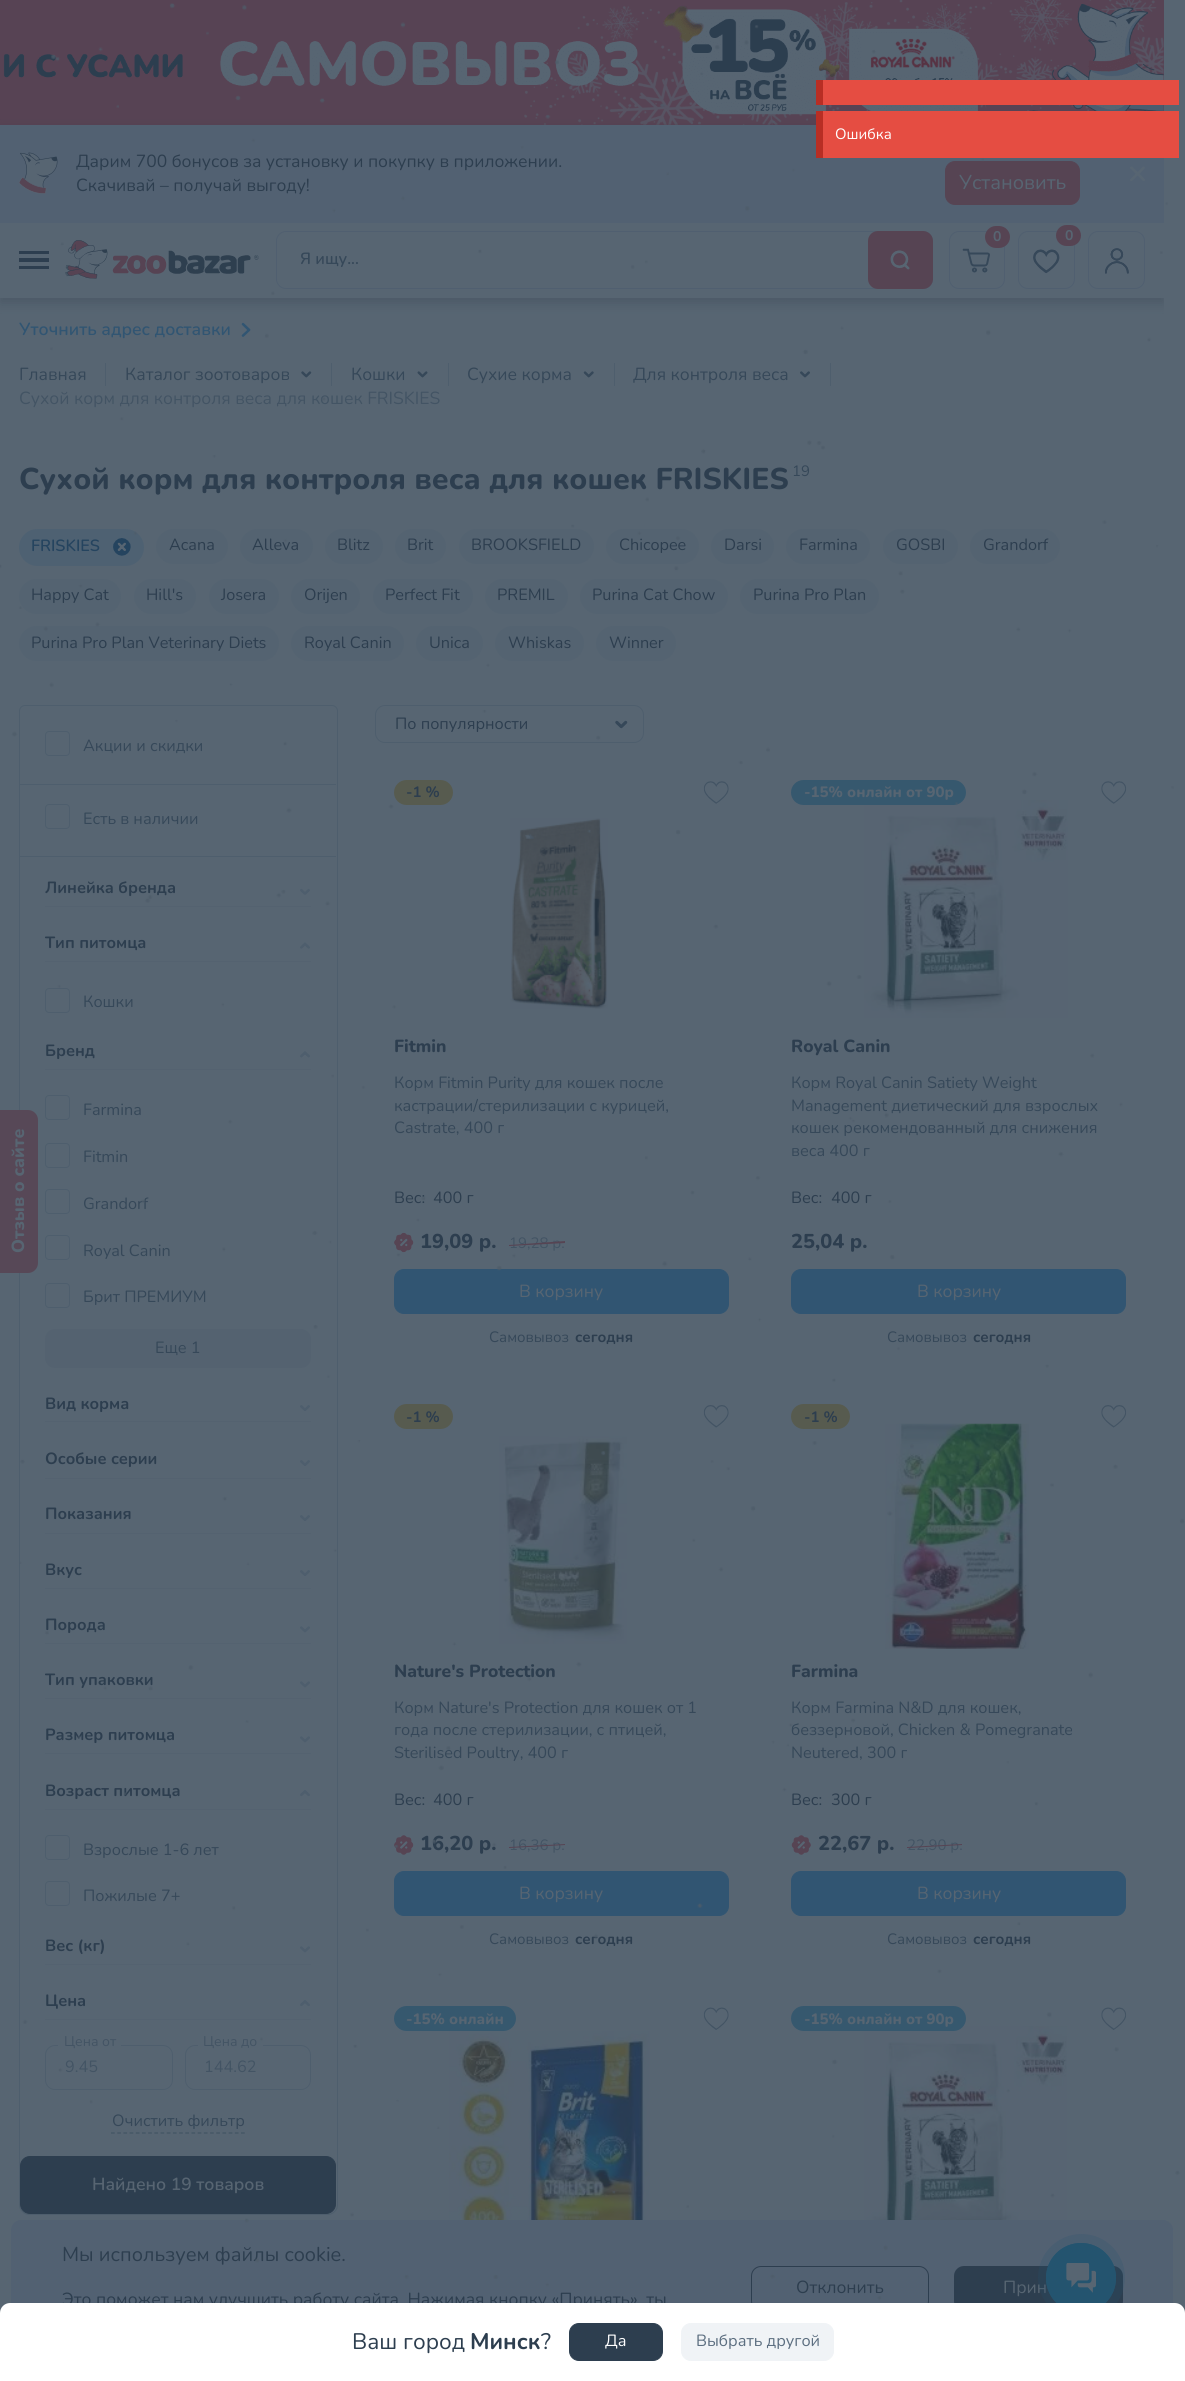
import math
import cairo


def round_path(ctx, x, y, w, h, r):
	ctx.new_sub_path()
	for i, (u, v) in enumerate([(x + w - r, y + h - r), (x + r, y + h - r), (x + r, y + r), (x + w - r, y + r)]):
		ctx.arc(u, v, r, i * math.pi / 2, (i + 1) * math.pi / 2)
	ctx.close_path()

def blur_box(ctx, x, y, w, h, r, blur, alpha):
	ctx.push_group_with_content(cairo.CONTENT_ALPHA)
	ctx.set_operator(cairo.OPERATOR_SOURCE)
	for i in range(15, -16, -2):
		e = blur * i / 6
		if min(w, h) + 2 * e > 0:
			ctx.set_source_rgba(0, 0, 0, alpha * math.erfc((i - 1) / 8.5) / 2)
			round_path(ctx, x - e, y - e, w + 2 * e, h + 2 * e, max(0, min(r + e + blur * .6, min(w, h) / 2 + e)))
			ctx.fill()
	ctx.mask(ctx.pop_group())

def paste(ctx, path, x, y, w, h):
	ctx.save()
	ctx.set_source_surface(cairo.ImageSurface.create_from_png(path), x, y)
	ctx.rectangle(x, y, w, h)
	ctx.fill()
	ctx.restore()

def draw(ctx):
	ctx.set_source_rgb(0.341, 0.396, 0.447)
	ctx.paint()
	ctx.set_source_rgb(0.341, 0.263, 0.329)
	ctx.rectangle(0, 0, 1164, 125)
	ctx.fill()
	paste(ctx, 'media/2.png', 3, 0, 1161, 125)
	ctx.save()
	ctx.rectangle(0, 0, 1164, 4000)
	ctx.clip()
	ctx.set_source_rgb(0.141, 0.196, 0.247)
	blur_box(ctx, 0, 130, 1164, 173, 0, 6, 0.25)
	ctx.restore()
	ctx.set_source_rgb(0.341, 0.396, 0.447)
	ctx.rectangle(0, 223, 1164, 75)
	ctx.fill()
	ctx.set_source_rgb(0.322, 0.38, 0.447)
	ctx.rectangle(0, 125, 1164, 98)
	ctx.fill()
	paste(ctx, 'media/3.png', 19, 152, 39, 42)
	ctx.select_font_face('Nunito')
	ctx.set_font_size(17.5)
	ctx.set_source_rgb(0.176, 0.243, 0.31)
	ctx.move_to(76, 167)
	ctx.show_text('Дарим 700 бонусов за установку и покупку в приложении.')
	ctx.move_to(76, 191)
	ctx.show_text('Скачивай – получай выгоду!')
	ctx.set_source_rgb(0.337, 0.267, 0.325)
	round_path(ctx, 945.5, 161.5, 134, 43, 9.5)
	ctx.fill_preserve()
	ctx.set_line_width(1)
	ctx.stroke()
	ctx.set_font_size(20)
	ctx.set_source_rgb(0.341, 0.396, 0.447)
	ctx.move_to(959, 189)
	ctx.show_text('Установить')
	paste(ctx, 'media/4.png', 1130, 166, 15, 15)
	ctx.set_source_rgb(0.176, 0.243, 0.31)
	ctx.rectangle(19, 251, 30, 3)
	ctx.rectangle(19, 258, 30, 4)
	ctx.rectangle(19, 266, 30, 3)
	ctx.fill()
	paste(ctx, 'media/5.png', 65, 240, 194, 39)
	round_path(ctx, 276.5, 231.5, 656, 57, 9.5)
	ctx.set_source_rgb(0.314, 0.373, 0.439)
	ctx.stroke()
	ctx.select_font_face('Nunito SemiBold')
	ctx.set_font_size(16.25)
	ctx.set_source_rgb(0.212, 0.282, 0.349)
	ctx.move_to(300, 264)
	ctx.show_text('Я ищу...')
	ctx.set_source_rgb(0.337, 0.267, 0.325)
	round_path(ctx, 868, 231, 65, 58, 10)
	ctx.fill()
	paste(ctx, 'media/6.png', 890, 250, 20, 20)
	round_path(ctx, 949.5, 231.5, 55, 57, 9.5)
	ctx.set_source_rgb(0.314, 0.373, 0.439)
	ctx.stroke()
	ctx.set_source_rgb(0.337, 0.267, 0.325)
	round_path(ctx, 985, 226, 25, 22, 11)
	ctx.fill()
	ctx.select_font_face('Nunito', cairo.FONT_SLANT_NORMAL, cairo.FONT_WEIGHT_BOLD)
	ctx.set_font_size(14)
	ctx.set_source_rgb(0.341, 0.396, 0.447)
	ctx.move_to(993, 241)
	ctx.show_text('0')
	paste(ctx, 'media/7.png', 962, 248, 28, 25)
	round_path(ctx, 1018.5, 231.5, 56, 57, 9.5)
	ctx.set_source_rgb(0.314, 0.373, 0.439)
	ctx.stroke()
	ctx.set_source_rgb(0.337, 0.267, 0.325)
	round_path(ctx, 1056, 225, 25, 21, 10.5)
	ctx.fill()
	ctx.set_source_rgb(0.341, 0.396, 0.447)
	ctx.move_to(1065, 240)
	ctx.show_text('0')
	paste(ctx, 'media/8.png', 1033, 249, 27, 25)
	round_path(ctx, 1088.5, 231.5, 56, 57, 9.5)
	ctx.set_source_rgb(0.314, 0.373, 0.439)
	ctx.stroke()
	paste(ctx, 'media/9.png', 1105, 248, 24, 26)
	ctx.new_path()
	ctx.move_to(25, 705.5)
	ctx.line_to(332, 705.5)
	ctx.curve_to(335, 705.5, 337.5, 708, 337.5, 711)
	ctx.line_to(337.5, 2205)
	ctx.curve_to(337.5, 2210, 333, 2214.5, 328, 2214.5)
	ctx.line_to(29, 2214.5)
	ctx.curve_to(24, 2214.5, 19.5, 2210, 19.5, 2205)
	ctx.line_to(19.5, 711)
	ctx.curve_to(19.5, 708, 22, 705.5, 25, 705.5)
	ctx.close_path()
	ctx.set_source_rgb(0.306, 0.369, 0.427)
	ctx.stroke()
	ctx.set_source_rgb(0.341, 0.282, 0.341)
	ctx.new_path()
	ctx.move_to(0, 1110)
	ctx.line_to(28, 1110)
	ctx.curve_to(33.5, 1110, 38, 1114.5, 38, 1120)
	ctx.line_to(38, 1263)
	ctx.curve_to(38, 1268.5, 33.5, 1273, 28, 1273)
	ctx.line_to(0, 1273)
	ctx.close_path()
	ctx.fill()
	ctx.select_font_face('Nunito ExtraBold')
	ctx.set_font_size(17.5)
	ctx.set_source_rgb(0.341, 0.396, 0.447)
	ctx.save()
	ctx.translate(24, 1253)
	ctx.rotate(-90 * math.pi / 180)
	ctx.move_to(0, 0)
	ctx.show_text('Отзыв о сайте')
	ctx.restore()
	ctx.select_font_face('Nunito SemiBold')
	ctx.set_source_rgb(0.192, 0.333, 0.447)
	ctx.move_to(19, 335)
	ctx.show_text('Уточнить адрес доставки')
	paste(ctx, 'media/10.png', 241, 322, 10, 15)
	ctx.select_font_face('Nunito')
	ctx.set_source_rgb(0.212, 0.282, 0.349)
	ctx.move_to(19, 380)
	ctx.show_text('Главная')
	ctx.set_source_rgb(0.306, 0.369, 0.427)
	ctx.rectangle(105, 363, 1, 23)
	ctx.fill()
	ctx.set_source_rgb(0.212, 0.282, 0.349)
	ctx.move_to(125, 380)
	ctx.show_text('Каталог зоотоваров')
	paste(ctx, 'media/11.png', 301, 371, 11, 7)
	ctx.set_source_rgb(0.306, 0.369, 0.427)
	ctx.rectangle(331, 363, 1, 23)
	ctx.fill()
	ctx.set_source_rgb(0.212, 0.282, 0.349)
	ctx.move_to(351, 380)
	ctx.show_text('Кошки')
	paste(ctx, 'media/12.png', 417, 371, 11, 7)
	ctx.set_source_rgb(0.306, 0.369, 0.427)
	ctx.rectangle(448, 363, 1, 23)
	ctx.fill()
	ctx.set_source_rgb(0.212, 0.282, 0.349)
	ctx.move_to(467, 380)
	ctx.show_text('Сухие корма')
	paste(ctx, 'media/13.png', 583, 371, 11, 7)
	ctx.set_source_rgb(0.306, 0.369, 0.427)
	ctx.rectangle(614, 363, 1, 23)
	ctx.fill()
	ctx.set_source_rgb(0.212, 0.282, 0.349)
	ctx.move_to(633, 380)
	ctx.show_text('Для контроля веса')
	paste(ctx, 'media/14.png', 800, 371, 10, 7)
	ctx.set_source_rgb(0.306, 0.369, 0.427)
	ctx.rectangle(830, 363, 1, 23)
	ctx.fill()
	ctx.set_source_rgb(0.263, 0.329, 0.392)
	ctx.move_to(19, 404)
	ctx.show_text('Сухой корм для контроля веса для кошек FRISKIES')
	ctx.select_font_face('Nunito ExtraBold')
	ctx.set_font_size(30)
	ctx.set_source_rgb(0.176, 0.243, 0.31)
	ctx.move_to(19, 489)
	ctx.show_text('Сухой корм для контроля веса для кошек FRISKIES')
	ctx.select_font_face('Nunito')
	ctx.set_font_size(15)
	ctx.set_source_rgb(0.212, 0.282, 0.349)
	ctx.move_to(792, 476)
	ctx.show_text('19')
	ctx.set_source_rgb(0.306, 0.38, 0.447)
	round_path(ctx, 19, 529, 125, 37, 18.5)
	ctx.fill()
	ctx.select_font_face('Nunito SemiBold')
	ctx.set_font_size(16.25)
	ctx.set_source_rgb(0.145, 0.267, 0.373)
	ctx.move_to(31, 551)
	ctx.show_text('FRISKIES')
	paste(ctx, 'media/15.png', 113, 538, 18, 18)
	ctx.set_source_rgb(0.329, 0.388, 0.443)
	round_path(ctx, 156, 529, 72, 35, 17.5)
	ctx.fill()
	ctx.select_font_face('Nunito')
	ctx.set_source_rgb(0.176, 0.243, 0.31)
	ctx.move_to(169, 550)
	ctx.show_text('Acana')
	ctx.set_source_rgb(0.329, 0.388, 0.443)
	round_path(ctx, 240, 529, 73, 35, 17.5)
	ctx.fill()
	ctx.set_source_rgb(0.176, 0.243, 0.31)
	ctx.move_to(252, 550)
	ctx.show_text('Alleva')
	ctx.set_source_rgb(0.329, 0.388, 0.443)
	round_path(ctx, 325, 529, 58, 35, 17.5)
	ctx.fill()
	ctx.set_source_rgb(0.176, 0.243, 0.31)
	ctx.move_to(337, 550)
	ctx.show_text('Blitz')
	ctx.set_source_rgb(0.329, 0.388, 0.443)
	round_path(ctx, 395, 529, 51, 35, 17.5)
	ctx.fill()
	ctx.set_source_rgb(0.176, 0.243, 0.31)
	ctx.move_to(407, 550)
	ctx.show_text('Brit')
	ctx.set_source_rgb(0.329, 0.388, 0.443)
	round_path(ctx, 459, 529, 135, 35, 17.5)
	ctx.fill()
	ctx.set_source_rgb(0.176, 0.243, 0.31)
	ctx.move_to(471, 550)
	ctx.show_text('BROOKSFIELD')
	ctx.set_source_rgb(0.329, 0.388, 0.443)
	round_path(ctx, 606, 529, 93, 35, 17.5)
	ctx.fill()
	ctx.set_source_rgb(0.176, 0.243, 0.31)
	ctx.move_to(619, 550)
	ctx.show_text('Chicopee')
	ctx.set_source_rgb(0.329, 0.388, 0.443)
	round_path(ctx, 711, 529, 63, 35, 17.5)
	ctx.fill()
	ctx.set_source_rgb(0.176, 0.243, 0.31)
	ctx.move_to(724, 550)
	ctx.show_text('Darsi')
	ctx.set_source_rgb(0.329, 0.388, 0.443)
	round_path(ctx, 786, 529, 84, 35, 17.5)
	ctx.fill()
	ctx.set_source_rgb(0.176, 0.243, 0.31)
	ctx.move_to(799, 550)
	ctx.show_text('Farmina')
	ctx.set_source_rgb(0.329, 0.388, 0.443)
	round_path(ctx, 883, 529, 75, 35, 17.5)
	ctx.fill()
	ctx.set_source_rgb(0.176, 0.243, 0.31)
	ctx.move_to(896, 550)
	ctx.show_text('GOSBI')
	ctx.set_source_rgb(0.329, 0.388, 0.443)
	round_path(ctx, 970, 529, 90, 35, 17.5)
	ctx.fill()
	ctx.set_source_rgb(0.176, 0.243, 0.31)
	ctx.move_to(983, 550)
	ctx.show_text('Grandorf')
	ctx.set_source_rgb(0.329, 0.388, 0.443)
	round_path(ctx, 19, 579, 102, 35, 17.5)
	ctx.fill()
	ctx.set_source_rgb(0.176, 0.243, 0.31)
	ctx.move_to(31, 600)
	ctx.show_text('Happy Cat')
	ctx.set_source_rgb(0.329, 0.388, 0.443)
	round_path(ctx, 134, 579, 62, 35, 17.5)
	ctx.fill()
	ctx.set_source_rgb(0.176, 0.243, 0.31)
	ctx.move_to(146, 600)
	ctx.show_text('Hill\'s')
	ctx.set_source_rgb(0.329, 0.388, 0.443)
	round_path(ctx, 209, 579, 70, 35, 17.5)
	ctx.fill()
	ctx.set_source_rgb(0.176, 0.243, 0.31)
	ctx.move_to(221, 600)
	ctx.show_text('Josera')
	ctx.set_source_rgb(0.329, 0.388, 0.443)
	round_path(ctx, 291, 579, 69, 35, 17.5)
	ctx.fill()
	ctx.set_source_rgb(0.176, 0.243, 0.31)
	ctx.move_to(304, 600)
	ctx.show_text('Orijen')
	ctx.set_source_rgb(0.329, 0.388, 0.443)
	round_path(ctx, 373, 579, 100, 35, 17.5)
	ctx.fill()
	ctx.set_source_rgb(0.176, 0.243, 0.31)
	ctx.move_to(385, 600)
	ctx.show_text('Perfect Fit')
	ctx.set_source_rgb(0.329, 0.388, 0.443)
	round_path(ctx, 485, 579, 83, 35, 17.5)
	ctx.fill()
	ctx.set_source_rgb(0.176, 0.243, 0.31)
	ctx.move_to(497, 600)
	ctx.show_text('PREMIL')
	ctx.set_source_rgb(0.329, 0.388, 0.443)
	round_path(ctx, 580, 579, 148, 35, 17.5)
	ctx.fill()
	ctx.set_source_rgb(0.176, 0.243, 0.31)
	ctx.move_to(592, 600)
	ctx.show_text('Purina Cat Chow')
	ctx.set_source_rgb(0.329, 0.388, 0.443)
	round_path(ctx, 740, 579, 139, 35, 17.5)
	ctx.fill()
	ctx.set_source_rgb(0.176, 0.243, 0.31)
	ctx.move_to(753, 600)
	ctx.show_text('Purina Pro Plan')
	ctx.set_source_rgb(0.329, 0.388, 0.443)
	round_path(ctx, 19, 626, 260, 35, 17.5)
	ctx.fill()
	ctx.set_source_rgb(0.176, 0.243, 0.31)
	ctx.move_to(31, 648)
	ctx.show_text('Purina Pro Plan Veterinary Diets')
	ctx.set_source_rgb(0.329, 0.388, 0.443)
	round_path(ctx, 291, 626, 113, 35, 17.5)
	ctx.fill()
	ctx.set_source_rgb(0.176, 0.243, 0.31)
	ctx.move_to(304, 648)
	ctx.show_text('Royal Canin')
	ctx.set_source_rgb(0.329, 0.388, 0.443)
	round_path(ctx, 416, 626, 67, 35, 17.5)
	ctx.fill()
	ctx.set_source_rgb(0.176, 0.243, 0.31)
	ctx.move_to(429, 648)
	ctx.show_text('Unica')
	ctx.set_source_rgb(0.329, 0.388, 0.443)
	round_path(ctx, 495, 626, 89, 35, 17.5)
	ctx.fill()
	ctx.set_source_rgb(0.176, 0.243, 0.31)
	ctx.move_to(508, 648)
	ctx.show_text('Whiskas')
	ctx.set_source_rgb(0.329, 0.388, 0.443)
	round_path(ctx, 596, 626, 80, 35, 17.5)
	ctx.fill()
	ctx.set_source_rgb(0.176, 0.243, 0.31)
	ctx.move_to(609, 648)
	ctx.show_text('Winner')
	ctx.set_source_rgb(0.306, 0.369, 0.427)
	ctx.rectangle(20, 784, 316, 1)
	ctx.fill()
	round_path(ctx, 45.5, 731.5, 24, 24, 3.5)
	ctx.stroke()
	ctx.set_source_rgb(0.212, 0.282, 0.349)
	ctx.move_to(83, 751)
	ctx.show_text('Акции и скидки')
	round_path(ctx, 45.5, 804.5, 24, 24, 3.5)
	ctx.set_source_rgb(0.306, 0.369, 0.427)
	ctx.stroke()
	ctx.set_source_rgb(0.212, 0.282, 0.349)
	ctx.move_to(83, 824)
	ctx.show_text('Есть в наличии')
	ctx.set_source_rgb(0.306, 0.369, 0.427)
	ctx.rectangle(20, 856, 316, 1)
	ctx.fill()
	ctx.set_source_rgb(0.329, 0.384, 0.439)
	ctx.rectangle(45, 906, 266, 1)
	ctx.fill()
	ctx.select_font_face('Nunito', cairo.FONT_SLANT_NORMAL, cairo.FONT_WEIGHT_BOLD)
	ctx.set_source_rgb(0.176, 0.243, 0.31)
	ctx.move_to(45, 893)
	ctx.show_text('Линейка бренда')
	paste(ctx, 'media/16.png', 300, 888, 10, 7)
	ctx.set_source_rgb(0.329, 0.384, 0.439)
	ctx.rectangle(45, 961, 266, 1)
	ctx.fill()
	ctx.set_source_rgb(0.176, 0.243, 0.31)
	ctx.move_to(45, 948)
	ctx.show_text('Тип питомца')
	paste(ctx, 'media/17.png', 300, 942, 10, 7)
	round_path(ctx, 45.5, 988.5, 24, 24, 3.5)
	ctx.set_source_rgb(0.306, 0.369, 0.427)
	ctx.stroke()
	ctx.select_font_face('Nunito')
	ctx.set_source_rgb(0.212, 0.282, 0.349)
	ctx.move_to(83, 1007)
	ctx.show_text('Кошки')
	ctx.set_source_rgb(0.329, 0.384, 0.439)
	ctx.rectangle(45, 1069, 266, 1)
	ctx.fill()
	ctx.select_font_face('Nunito', cairo.FONT_SLANT_NORMAL, cairo.FONT_WEIGHT_BOLD)
	ctx.set_source_rgb(0.176, 0.243, 0.31)
	ctx.move_to(45, 1056)
	ctx.show_text('Бренд')
	paste(ctx, 'media/18.png', 300, 1051, 10, 7)
	round_path(ctx, 45.5, 1095.5, 24, 24, 3.5)
	ctx.set_source_rgb(0.306, 0.369, 0.427)
	ctx.stroke()
	ctx.select_font_face('Nunito')
	ctx.set_source_rgb(0.212, 0.282, 0.349)
	ctx.move_to(83, 1115)
	ctx.show_text('Farmina')
	round_path(ctx, 45.5, 1143.5, 24, 24, 3.5)
	ctx.set_source_rgb(0.306, 0.369, 0.427)
	ctx.stroke()
	ctx.set_source_rgb(0.212, 0.282, 0.349)
	ctx.move_to(83, 1162)
	ctx.show_text('Fitmin')
	round_path(ctx, 45.5, 1189.5, 24, 24, 3.5)
	ctx.set_source_rgb(0.306, 0.369, 0.427)
	ctx.stroke()
	ctx.set_source_rgb(0.212, 0.282, 0.349)
	ctx.move_to(83, 1209)
	ctx.show_text('Grandorf')
	round_path(ctx, 45.5, 1235.5, 24, 24, 3.5)
	ctx.set_source_rgb(0.306, 0.369, 0.427)
	ctx.stroke()
	ctx.set_source_rgb(0.212, 0.282, 0.349)
	ctx.move_to(83, 1256)
	ctx.show_text('Royal Canin')
	round_path(ctx, 45.5, 1283.5, 24, 24, 3.5)
	ctx.set_source_rgb(0.306, 0.369, 0.427)
	ctx.stroke()
	ctx.set_source_rgb(0.212, 0.282, 0.349)
	ctx.move_to(83, 1302)
	ctx.show_text('Брит ПРЕМИУМ')
	ctx.set_source_rgb(0.329, 0.384, 0.439)
	round_path(ctx, 45, 1329, 266, 39, 10)
	ctx.fill()
	ctx.set_source_rgb(0.212, 0.282, 0.349)
	ctx.move_to(155, 1353)
	ctx.show_text('Еще 1')
	ctx.set_source_rgb(0.329, 0.384, 0.439)
	ctx.rectangle(45, 1421, 266, 1)
	ctx.fill()
	ctx.select_font_face('Nunito', cairo.FONT_SLANT_NORMAL, cairo.FONT_WEIGHT_BOLD)
	ctx.set_source_rgb(0.176, 0.243, 0.31)
	ctx.move_to(45, 1409)
	ctx.show_text('Вид корма')
	paste(ctx, 'media/19.png', 300, 1405, 10, 6)
	ctx.set_source_rgb(0.329, 0.384, 0.439)
	ctx.rectangle(45, 1478, 266, 1)
	ctx.fill()
	ctx.set_source_rgb(0.176, 0.243, 0.31)
	ctx.move_to(45, 1464)
	ctx.show_text('Особые серии')
	paste(ctx, 'media/19.png', 300, 1460, 10, 6)
	ctx.set_source_rgb(0.329, 0.384, 0.439)
	ctx.rectangle(45, 1533, 266, 1)
	ctx.fill()
	ctx.set_source_rgb(0.176, 0.243, 0.31)
	ctx.move_to(45, 1519)
	ctx.show_text('Показания')
	paste(ctx, 'media/19.png', 300, 1515, 10, 6)
	ctx.set_source_rgb(0.329, 0.384, 0.439)
	ctx.rectangle(45, 1588, 266, 1)
	ctx.fill()
	ctx.set_source_rgb(0.176, 0.243, 0.31)
	ctx.move_to(45, 1575)
	ctx.show_text('Вкус')
	paste(ctx, 'media/19.png', 300, 1570, 10, 6)
	ctx.set_source_rgb(0.329, 0.384, 0.439)
	ctx.rectangle(45, 1643, 266, 1)
	ctx.fill()
	ctx.set_source_rgb(0.176, 0.243, 0.31)
	ctx.move_to(45, 1630)
	ctx.show_text('Порода')
	paste(ctx, 'media/20.png', 300, 1626, 10, 7)
	ctx.set_source_rgb(0.329, 0.384, 0.439)
	ctx.rectangle(45, 1698, 266, 1)
	ctx.fill()
	ctx.set_source_rgb(0.176, 0.243, 0.31)
	ctx.move_to(45, 1685)
	ctx.show_text('Тип упаковки')
	paste(ctx, 'media/20.png', 300, 1681, 10, 7)
	ctx.set_source_rgb(0.329, 0.384, 0.439)
	ctx.rectangle(45, 1753, 266, 1)
	ctx.fill()
	ctx.set_source_rgb(0.176, 0.243, 0.31)
	ctx.move_to(45, 1740)
	ctx.show_text('Размер питомца')
	paste(ctx, 'media/20.png', 300, 1736, 10, 7)
	ctx.set_source_rgb(0.329, 0.384, 0.439)
	ctx.rectangle(45, 1809, 266, 1)
	ctx.fill()
	ctx.set_source_rgb(0.176, 0.243, 0.31)
	ctx.move_to(45, 1796)
	ctx.show_text('Возраст питомца')
	paste(ctx, 'media/21.png', 300, 1790, 10, 7)
	round_path(ctx, 45.5, 1835.5, 24, 24, 3.5)
	ctx.set_source_rgb(0.306, 0.369, 0.427)
	ctx.stroke()
	ctx.select_font_face('Nunito')
	ctx.set_source_rgb(0.212, 0.282, 0.349)
	ctx.move_to(83, 1855)
	ctx.show_text('Взрослые 1-6 лет')
	round_path(ctx, 45.5, 1881.5, 24, 24, 3.5)
	ctx.set_source_rgb(0.306, 0.369, 0.427)
	ctx.stroke()
	ctx.set_source_rgb(0.212, 0.282, 0.349)
	ctx.move_to(83, 1901)
	ctx.show_text('Пожилые 7+')
	ctx.set_source_rgb(0.329, 0.384, 0.439)
	ctx.rectangle(45, 1964, 266, 1)
	ctx.fill()
	ctx.select_font_face('Nunito', cairo.FONT_SLANT_NORMAL, cairo.FONT_WEIGHT_BOLD)
	ctx.set_source_rgb(0.176, 0.243, 0.31)
	ctx.move_to(45, 1951)
	ctx.show_text('Вес (кг)')
	paste(ctx, 'media/20.png', 300, 1946, 10, 7)
	ctx.set_source_rgb(0.329, 0.384, 0.439)
	ctx.rectangle(45, 2019, 266, 1)
	ctx.fill()
	ctx.set_source_rgb(0.176, 0.243, 0.31)
	ctx.move_to(45, 2006)
	ctx.show_text('Цена')
	paste(ctx, 'media/21.png', 300, 2000, 10, 7)
	round_path(ctx, 45.5, 2045.5, 127, 44, 9.5)
	ctx.set_source_rgb(0.306, 0.369, 0.427)
	ctx.stroke()
	ctx.set_source_rgb(0.341, 0.396, 0.447)
	ctx.rectangle(58, 2045, 63, 1)
	ctx.fill()
	ctx.select_font_face('Nunito')
	ctx.set_font_size(14)
	ctx.set_source_rgb(0.263, 0.329, 0.392)
	ctx.move_to(64, 2046)
	ctx.show_text('Цена от')
	ctx.set_font_size(16.25)
	ctx.move_to(65, 2072)
	ctx.show_text('9.45')
	round_path(ctx, 185.5, 2045.5, 125, 44, 9.5)
	ctx.set_source_rgb(0.306, 0.369, 0.427)
	ctx.stroke()
	ctx.set_source_rgb(0.341, 0.396, 0.447)
	ctx.rectangle(198, 2045, 65, 1)
	ctx.fill()
	ctx.set_font_size(14)
	ctx.set_source_rgb(0.263, 0.329, 0.392)
	ctx.move_to(203, 2046)
	ctx.show_text('Цена до')
	ctx.set_font_size(16.25)
	ctx.move_to(204, 2072)
	ctx.show_text('144.62')
	ctx.set_source_rgb(0.212, 0.282, 0.349)
	ctx.move_to(112, 2126)
	ctx.show_text('Очистить фильтр')
	ctx.new_path()
	ctx.move_to(111, 2133)
	ctx.line_to(245, 2133)
	ctx.set_source_rgb(0.263, 0.329, 0.392)
	ctx.set_line_width(1.2)
	ctx.set_dash([3.75, 2.44])
	ctx.stroke()
	ctx.set_source_rgb(0.176, 0.243, 0.31)
	round_path(ctx, 20.5, 2156.5, 315, 57, 9.5)
	ctx.fill_preserve()
	ctx.set_line_width(1)
	ctx.set_dash([])
	ctx.stroke()
	ctx.select_font_face('Nunito SemiBold')
	ctx.set_font_size(17.5)
	ctx.set_source_rgb(0.341, 0.396, 0.447)
	ctx.move_to(92, 2190)
	ctx.show_text('Найдено 19 товаров')
	round_path(ctx, 375.5, 705.5, 268, 37, 9.5)
	ctx.set_source_rgb(0.306, 0.369, 0.427)
	ctx.stroke()
	ctx.select_font_face('Nunito')
	ctx.set_font_size(16.25)
	ctx.set_source_rgb(0.176, 0.243, 0.31)
	ctx.move_to(395, 729)
	ctx.show_text('По популярности')
	paste(ctx, 'media/22.png', 615, 720, 13, 9)
	ctx.set_source_rgb(0.341, 0.357, 0.31)
	round_path(ctx, 394, 780, 59, 25, 12.5)
	ctx.fill()
	ctx.select_font_face('Nunito', cairo.FONT_SLANT_NORMAL, cairo.FONT_WEIGHT_BOLD)
	ctx.set_font_size(15)
	ctx.set_source_rgb(0.176, 0.243, 0.31)
	ctx.move_to(406, 797)
	ctx.show_text('-1 %')
	paste(ctx, 'media/23.png', 510, 818, 98, 191)
	ctx.select_font_face('Nunito ExtraBold')
	ctx.set_font_size(17.5)
	ctx.move_to(394, 1052)
	ctx.show_text('Fitmin')
	ctx.select_font_face('Nunito')
	ctx.set_font_size(16.25)
	ctx.set_source_rgb(0.212, 0.282, 0.349)
	for x, y, s in [
		(394, 1088, 'Корм Fitmin Purity для кошек после'),
		(394, 1111, 'кастрации/стерилизации с курицей,'),
		(394, 1133, 'Castrate, 400 г'),
	]:
		ctx.move_to(x, y)
		ctx.show_text(s)
	paste(ctx, 'media/24.png', 703, 781, 26, 23)
	ctx.set_source_rgb(0.176, 0.243, 0.31)
	ctx.move_to(394, 1203)
	ctx.show_text('Вес:')
	ctx.move_to(433, 1203)
	ctx.show_text('400 г')
	paste(ctx, 'media/25.png', 394, 1232, 20, 21)
	ctx.select_font_face('Nunito ExtraBold')
	ctx.set_font_size(20)
	ctx.move_to(420, 1248)
	ctx.show_text('19,09 р.')
	ctx.select_font_face('Nunito')
	ctx.set_font_size(15)
	ctx.set_source_rgb(0.263, 0.329, 0.392)
	ctx.move_to(509, 1248)
	ctx.show_text('19,28 р.')
	ctx.set_source_rgb(0.337, 0.267, 0.325)
	ctx.new_path()
	ctx.move_to(509, 1245)
	ctx.line_to(565, 1241)
	ctx.line_to(565, 1243)
	ctx.line_to(509, 1246)
	ctx.close_path()
	ctx.fill()
	ctx.set_source_rgb(0.192, 0.333, 0.447)
	round_path(ctx, 394.5, 1269.5, 334, 44, 9.5)
	ctx.fill_preserve()
	ctx.stroke()
	ctx.set_font_size(17.5)
	ctx.set_source_rgb(0.341, 0.396, 0.447)
	ctx.move_to(519, 1297)
	ctx.show_text('В корзину')
	ctx.set_font_size(15)
	ctx.set_source_rgb(0.212, 0.282, 0.349)
	ctx.move_to(489, 1342)
	ctx.show_text('Самовывоз')
	ctx.select_font_face('Nunito', cairo.FONT_SLANT_NORMAL, cairo.FONT_WEIGHT_BOLD)
	ctx.set_source_rgb(0.176, 0.243, 0.31)
	ctx.move_to(575, 1342)
	ctx.show_text('сегодня')
	paste(ctx, 'media/26.png', 864, 800, 204, 218)
	ctx.set_source_rgb(0.212, 0.345, 0.431)
	round_path(ctx, 791, 780, 175, 25, 12.5)
	ctx.fill()
	ctx.select_font_face('Nunito ExtraBold')
	ctx.set_source_rgb(0.341, 0.396, 0.447)
	ctx.move_to(804, 797)
	ctx.show_text('-15% онлайн от 90р')
	ctx.set_font_size(17.5)
	ctx.set_source_rgb(0.176, 0.243, 0.31)
	ctx.move_to(791, 1052)
	ctx.show_text('Royal Canin')
	ctx.select_font_face('Nunito')
	ctx.set_font_size(16.25)
	ctx.set_source_rgb(0.212, 0.282, 0.349)
	for x, y, s in [
		(791, 1088, 'Корм Royal Canin Satiety Weight'),
		(791, 1111, 'Management диетический для взрослых'),
		(791, 1133, 'кошек рекомендованный для снижения'),
		(791, 1156, 'веса 400 г'),
	]:
		ctx.move_to(x, y)
		ctx.show_text(s)
	paste(ctx, 'media/27.png', 1101, 781, 26, 23)
	ctx.set_source_rgb(0.176, 0.243, 0.31)
	ctx.move_to(791, 1203)
	ctx.show_text('Вес:')
	ctx.move_to(831, 1203)
	ctx.show_text('400 г')
	ctx.select_font_face('Nunito ExtraBold')
	ctx.set_font_size(20)
	ctx.move_to(791, 1248)
	ctx.show_text('25,04 р.')
	ctx.set_source_rgb(0.192, 0.333, 0.447)
	round_path(ctx, 791.5, 1269.5, 334, 44, 9.5)
	ctx.fill_preserve()
	ctx.stroke()
	ctx.select_font_face('Nunito')
	ctx.set_font_size(17.5)
	ctx.set_source_rgb(0.341, 0.396, 0.447)
	ctx.move_to(917, 1297)
	ctx.show_text('В корзину')
	ctx.set_font_size(15)
	ctx.set_source_rgb(0.212, 0.282, 0.349)
	ctx.move_to(887, 1342)
	ctx.show_text('Самовывоз')
	ctx.select_font_face('Nunito', cairo.FONT_SLANT_NORMAL, cairo.FONT_WEIGHT_BOLD)
	ctx.set_source_rgb(0.176, 0.243, 0.31)
	ctx.move_to(973, 1342)
	ctx.show_text('сегодня')
	ctx.set_source_rgb(0.341, 0.357, 0.31)
	round_path(ctx, 394, 1404, 59, 25, 12.5)
	ctx.fill()
	ctx.set_source_rgb(0.176, 0.243, 0.31)
	ctx.move_to(406, 1422)
	ctx.show_text('-1 %')
	paste(ctx, 'media/28.png', 499, 1436, 128, 208)
	ctx.select_font_face('Nunito ExtraBold')
	ctx.set_font_size(17.5)
	ctx.move_to(394, 1677)
	ctx.show_text('Nature\'s Protection')
	ctx.select_font_face('Nunito')
	ctx.set_font_size(16.25)
	ctx.set_source_rgb(0.212, 0.282, 0.349)
	for x, y, s in [
		(394, 1713, 'Корм Nature\'s Protection для кошек от 1'),
		(394, 1735, 'года после стерилизации, с птицей,'),
		(394, 1758, 'Sterilised Poultry, 400 г'),
	]:
		ctx.move_to(x, y)
		ctx.show_text(s)
	paste(ctx, 'media/29.png', 703, 1405, 26, 23)
	ctx.set_source_rgb(0.176, 0.243, 0.31)
	ctx.move_to(394, 1805)
	ctx.show_text('Вес:')
	ctx.move_to(433, 1805)
	ctx.show_text('400 г')
	paste(ctx, 'media/30.png', 394, 1835, 20, 20)
	ctx.select_font_face('Nunito ExtraBold')
	ctx.set_font_size(20)
	ctx.move_to(420, 1850)
	ctx.show_text('16,20 р.')
	ctx.select_font_face('Nunito')
	ctx.set_font_size(15)
	ctx.set_source_rgb(0.263, 0.329, 0.392)
	ctx.move_to(509, 1850)
	ctx.show_text('16,36 р.')
	ctx.set_source_rgb(0.337, 0.267, 0.325)
	ctx.new_path()
	ctx.move_to(509, 1847)
	ctx.line_to(565, 1844)
	ctx.line_to(565, 1845)
	ctx.line_to(509, 1848)
	ctx.close_path()
	ctx.fill()
	ctx.set_source_rgb(0.192, 0.333, 0.447)
	round_path(ctx, 394.5, 1871.5, 334, 44, 9.5)
	ctx.fill_preserve()
	ctx.stroke()
	ctx.set_font_size(17.5)
	ctx.set_source_rgb(0.341, 0.396, 0.447)
	ctx.move_to(519, 1899)
	ctx.show_text('В корзину')
	ctx.set_font_size(15)
	ctx.set_source_rgb(0.212, 0.282, 0.349)
	ctx.move_to(489, 1944)
	ctx.show_text('Самовывоз')
	ctx.select_font_face('Nunito', cairo.FONT_SLANT_NORMAL, cairo.FONT_WEIGHT_BOLD)
	ctx.set_source_rgb(0.176, 0.243, 0.31)
	ctx.move_to(575, 1944)
	ctx.show_text('сегодня')
	ctx.set_source_rgb(0.341, 0.357, 0.31)
	round_path(ctx, 791, 1404, 59, 25, 12.5)
	ctx.fill()
	ctx.set_source_rgb(0.176, 0.243, 0.31)
	ctx.move_to(804, 1422)
	ctx.show_text('-1 %')
	paste(ctx, 'media/31.png', 885, 1423, 144, 226)
	ctx.select_font_face('Nunito ExtraBold')
	ctx.set_font_size(17.5)
	ctx.move_to(791, 1677)
	ctx.show_text('Farmina')
	ctx.select_font_face('Nunito')
	ctx.set_font_size(16.25)
	ctx.set_source_rgb(0.212, 0.282, 0.349)
	for x, y, s in [
		(791, 1713, 'Корм Farmina N&D для кошек,'),
		(791, 1735, 'беззерновой, Chicken & Pomegranate'),
		(791, 1758, 'Neutered, 300 г'),
	]:
		ctx.move_to(x, y)
		ctx.show_text(s)
	paste(ctx, 'media/32.png', 1101, 1405, 26, 23)
	ctx.set_source_rgb(0.176, 0.243, 0.31)
	ctx.move_to(791, 1805)
	ctx.show_text('Вес:')
	ctx.move_to(831, 1805)
	ctx.show_text('300 г')
	paste(ctx, 'media/33.png', 791, 1835, 20, 20)
	ctx.select_font_face('Nunito ExtraBold')
	ctx.set_font_size(20)
	ctx.move_to(818, 1850)
	ctx.show_text('22,67 р.')
	ctx.select_font_face('Nunito')
	ctx.set_font_size(15)
	ctx.set_source_rgb(0.263, 0.329, 0.392)
	ctx.move_to(907, 1850)
	ctx.show_text('22,90 р.')
	ctx.set_source_rgb(0.337, 0.267, 0.325)
	ctx.new_path()
	ctx.move_to(907, 1847)
	ctx.line_to(962, 1844)
	ctx.line_to(962, 1845)
	ctx.line_to(907, 1848)
	ctx.close_path()
	ctx.fill()
	ctx.set_source_rgb(0.192, 0.333, 0.447)
	round_path(ctx, 791.5, 1871.5, 334, 44, 9.5)
	ctx.fill_preserve()
	ctx.stroke()
	ctx.set_font_size(17.5)
	ctx.set_source_rgb(0.341, 0.396, 0.447)
	ctx.move_to(917, 1899)
	ctx.show_text('В корзину')
	ctx.set_font_size(15)
	ctx.set_source_rgb(0.212, 0.282, 0.349)
	ctx.move_to(887, 1944)
	ctx.show_text('Самовывоз')
	ctx.select_font_face('Nunito', cairo.FONT_SLANT_NORMAL, cairo.FONT_WEIGHT_BOLD)
	ctx.set_source_rgb(0.176, 0.243, 0.31)
	ctx.move_to(973, 1944)
	ctx.show_text('сегодня')
	ctx.set_source_rgb(0.212, 0.345, 0.431)
	round_path(ctx, 394, 2006, 122, 25, 12.5)
	ctx.fill()
	ctx.select_font_face('Nunito ExtraBold')
	ctx.set_source_rgb(0.341, 0.396, 0.447)
	ctx.move_to(406, 2024)
	ctx.show_text('-15% онлайн')
	paste(ctx, 'media/34.png', 449, 2031, 201, 189)
	paste(ctx, 'media/35.png', 703, 2007, 26, 23)
	paste(ctx, 'media/36.png', 864, 2026, 203, 194)
	ctx.set_source_rgb(0.212, 0.345, 0.431)
	round_path(ctx, 791, 2006, 175, 25, 12.5)
	ctx.fill()
	ctx.set_source_rgb(0.341, 0.396, 0.447)
	ctx.move_to(804, 2024)
	ctx.show_text('-15% онлайн от 90р')
	paste(ctx, 'media/37.png', 1101, 2007, 26, 23)
	ctx.set_source_rgb(0.322, 0.38, 0.447)
	round_path(ctx, 11, 2220, 1162, 136, 10)
	ctx.fill()
	ctx.select_font_face('Nunito')
	ctx.set_font_size(20)
	ctx.set_source_rgb(0.176, 0.243, 0.31)
	ctx.move_to(62, 2261)
	ctx.show_text('Мы используем файлы cookie.')
	ctx.set_font_size(17.5)
	ctx.move_to(62, 2305)
	ctx.show_text('Это поможет нам улучшить работу сайта. Нажимая кнопку «Принять», ты')
	round_path(ctx, 751.5, 2266.5, 177, 44, 9.5)
	ctx.stroke()
	ctx.move_to(796, 2293)
	ctx.show_text('Отклонить')
	round_path(ctx, 954, 2266, 169, 45, 10)
	ctx.fill()
	ctx.set_source_rgb(0.341, 0.396, 0.447)
	ctx.move_to(1003, 2293)
	ctx.show_text('Прин')
	paste(ctx, 'media/1.png', 0, 3, 1185, 2300)
	ctx.set_source_rgb(0.898, 0.302, 0.259)
	ctx.rectangle(823, 80, 356, 25)
	ctx.fill()
	ctx.set_source_rgb(0.722, 0.18, 0.141)
	ctx.rectangle(816, 80, 7, 25)
	ctx.fill()
	ctx.set_source_rgb(0.898, 0.302, 0.259)
	ctx.rectangle(823, 111, 356, 47)
	ctx.fill()
	ctx.set_source_rgb(0.722, 0.18, 0.141)
	ctx.rectangle(816, 111, 7, 47)
	ctx.fill()
	ctx.set_font_size(15)
	ctx.set_source_rgb(1, 1, 1)
	ctx.move_to(835, 139)
	ctx.show_text('Ошибка')
	ctx.set_source_rgba(0.141, 0.329, 0.435, 0.2)
	ctx.new_path()
	ctx.arc(1081.5, 2277.5, 43.5, 0, 2 * math.pi)
	ctx.fill()
	ctx.arc(1081, 2278, 34.5, 0, 2 * math.pi)
	ctx.set_source_rgb(0.141, 0.329, 0.435)
	ctx.stroke()
	ctx.arc(1081, 2278, 35, 0, 2 * math.pi)
	ctx.fill()
	paste(ctx, 'media/38.png', 1066, 2263, 30, 30)
	ctx.set_source_rgb(1, 1, 1)
	ctx.new_path()
	ctx.move_to(10, 2303)
	ctx.line_to(1175, 2303)
	ctx.curve_to(1180.5, 2303, 1185, 2307.5, 1185, 2313)
	ctx.line_to(1185, 2381)
	ctx.line_to(0, 2381)
	ctx.line_to(0, 2313)
	ctx.curve_to(0, 2307.5, 4.5, 2303, 10, 2303)
	ctx.close_path()
	ctx.fill()
	ctx.set_font_size(22.5)
	ctx.set_source_rgb(0.176, 0.243, 0.31)
	ctx.move_to(352, 2349)
	ctx.show_text('Ваш город')
	ctx.select_font_face('Nunito', cairo.FONT_SLANT_NORMAL, cairo.FONT_WEIGHT_BOLD)
	ctx.move_to(470, 2349)
	ctx.show_text('Минск')
	ctx.select_font_face('Nunito')
	ctx.move_to(541, 2349)
	ctx.show_text('?')
	round_path(ctx, 569.5, 2323.5, 93, 37, 9.5)
	ctx.fill_preserve()
	ctx.stroke()
	ctx.set_font_size(16.25)
	ctx.set_source_rgb(1, 1, 1)
	ctx.move_to(605, 2346)
	ctx.show_text('Да')
	ctx.set_source_rgb(0.941, 0.953, 0.961)
	round_path(ctx, 681.5, 2323.5, 152, 37, 9.5)
	ctx.fill_preserve()
	ctx.stroke()
	ctx.set_source_rgb(0.361, 0.431, 0.502)
	ctx.move_to(696, 2346)
	ctx.show_text('Выбрать другой')


surface = cairo.ImageSurface(cairo.FORMAT_RGB24, 1185, 2381)
ctx = cairo.Context(surface)
options = cairo.FontOptions()
options.set_hint_metrics(cairo.HINT_METRICS_OFF)
options.set_hint_style(cairo.HINT_STYLE_NONE)
ctx.set_font_options(options)
ctx.set_miter_limit(4)
draw(ctx)
surface.write_to_png('image.png')
